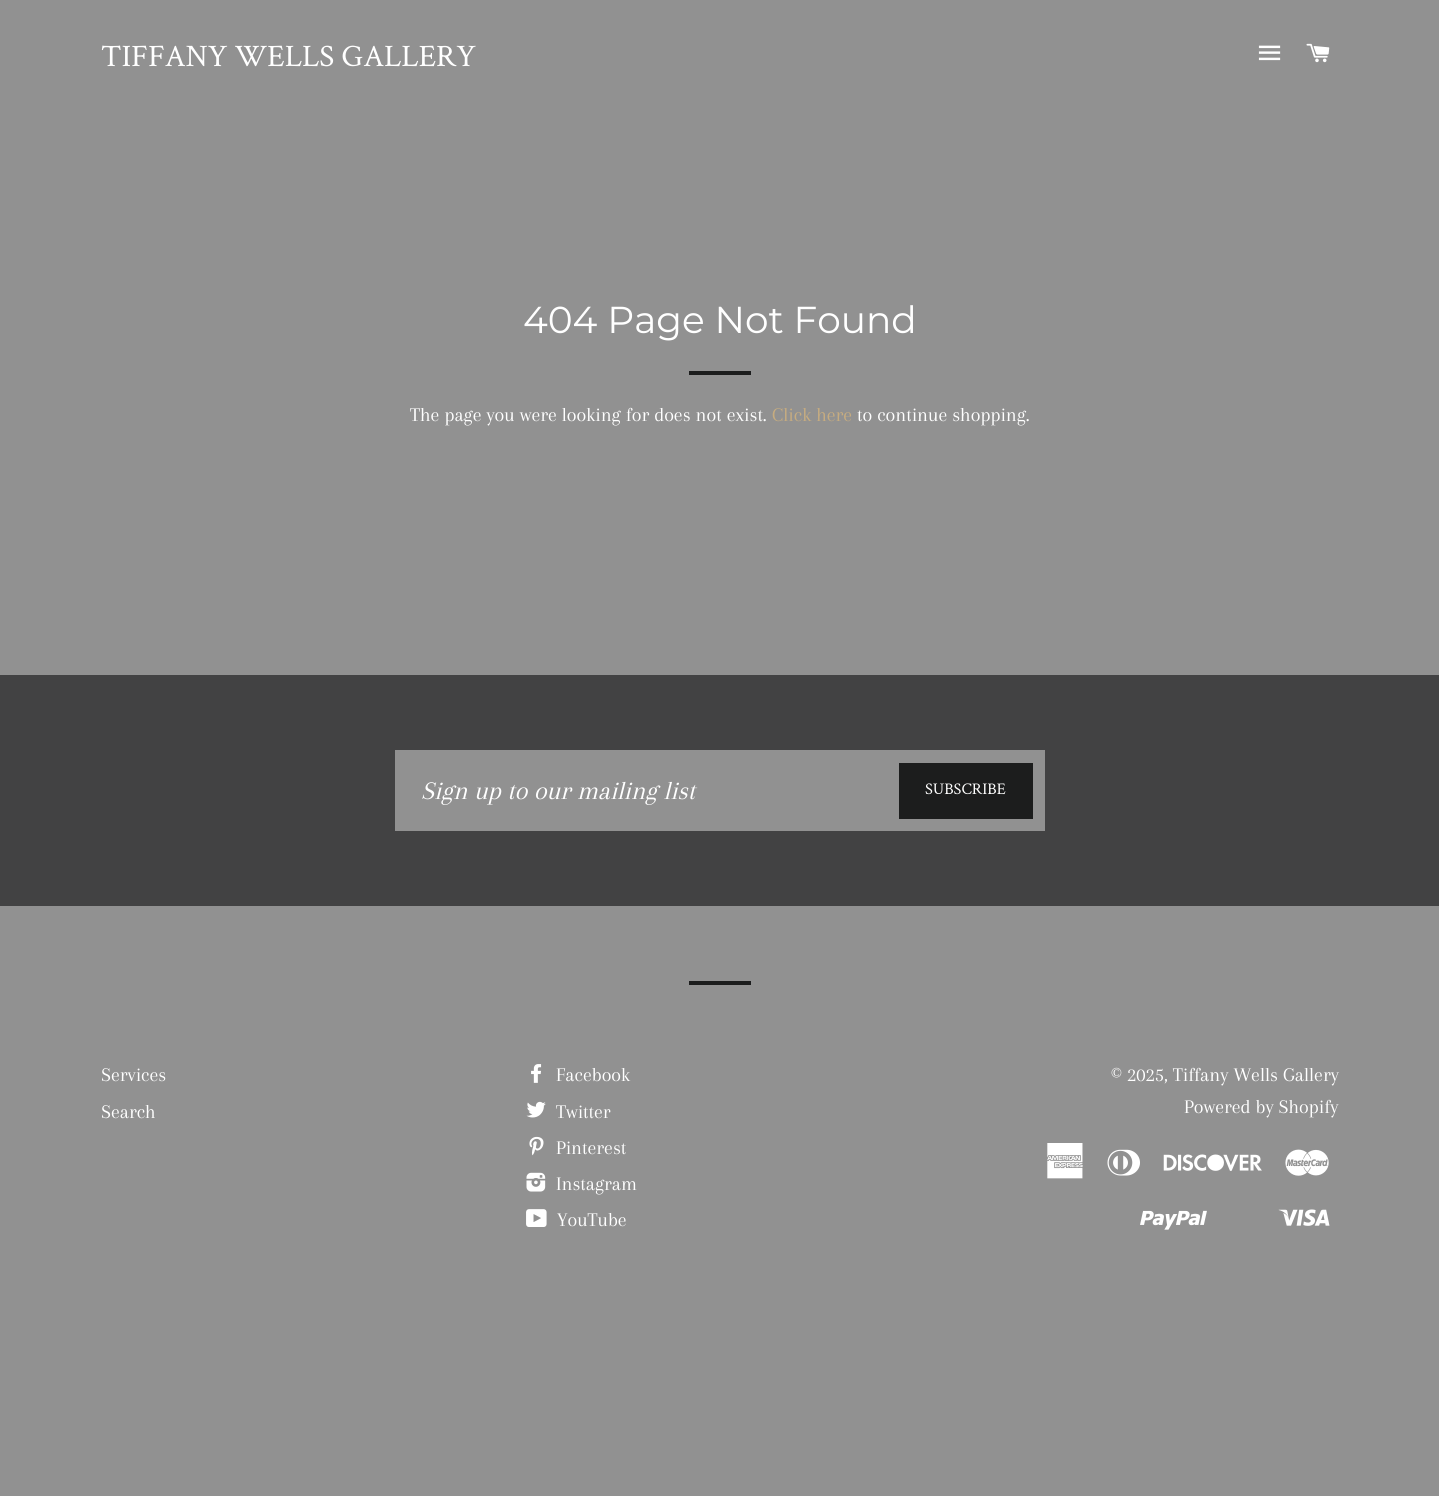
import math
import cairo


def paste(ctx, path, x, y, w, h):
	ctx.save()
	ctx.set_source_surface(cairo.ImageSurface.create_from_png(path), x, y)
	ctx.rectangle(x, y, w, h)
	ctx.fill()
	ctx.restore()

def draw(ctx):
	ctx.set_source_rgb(0.569, 0.569, 0.569)
	ctx.paint()
	ctx.select_font_face('Crimson Text')
	ctx.set_font_size(31.25)
	ctx.set_source_rgb(1, 1, 1)
	ctx.move_to(101, 66)
	ctx.show_text('TIFFANY WELLS GALLERY')
	paste(ctx, 'media/1.png', 1258, 45, 23, 16)
	paste(ctx, 'media/2.png', 1306, 43, 24, 20)
	ctx.select_font_face('Montserrat Thin')
	ctx.set_font_size(37.5)
	ctx.move_to(523, 333)
	ctx.show_text('404 Page Not Found')
	ctx.set_source_rgb(0.11, 0.114, 0.114)
	ctx.rectangle(689, 371, 62, 4)
	ctx.fill()
	ctx.select_font_face('Arapey')
	ctx.set_font_size(20)
	ctx.set_source_rgb(1, 1, 1)
	ctx.move_to(410, 421)
	ctx.show_text('The page you were looking for does not exist.')
	ctx.set_source_rgb(0.78, 0.675, 0.498)
	ctx.move_to(772, 421)
	ctx.show_text('Click here')
	ctx.set_source_rgb(1, 1, 1)
	ctx.move_to(857, 421)
	ctx.show_text('to continue shopping.')
	ctx.set_source_rgb(0.259, 0.259, 0.263)
	ctx.rectangle(0, 675, 1439, 231)
	ctx.fill()
	ctx.set_source_rgb(0.569, 0.569, 0.569)
	ctx.rectangle(395, 750, 650, 81)
	ctx.fill()
	ctx.select_font_face('Arapey', cairo.FONT_SLANT_ITALIC)
	ctx.set_font_size(26.25)
	ctx.set_source_rgb(1, 1, 1)
	ctx.move_to(421, 799)
	ctx.show_text('Sign up to our mailing list')
	ctx.set_source_rgb(0.11, 0.114, 0.114)
	ctx.rectangle(899, 763, 134, 56)
	ctx.fill()
	ctx.select_font_face('Crimson Text')
	ctx.set_font_size(16.25)
	ctx.set_source_rgb(1, 1, 1)
	ctx.move_to(925, 794)
	ctx.show_text('SUBSCRIBE')
	ctx.set_source_rgb(0.11, 0.114, 0.114)
	ctx.rectangle(689, 981, 62, 4)
	ctx.fill()
	ctx.select_font_face('Arapey')
	ctx.set_font_size(20)
	ctx.set_source_rgb(1, 1, 1)
	ctx.move_to(101, 1081)
	ctx.show_text('Services')
	ctx.move_to(101, 1118)
	ctx.show_text('Search')
	paste(ctx, 'media/3.png', 531, 1064, 11, 19)
	ctx.move_to(556, 1081)
	ctx.show_text('Facebook')
	paste(ctx, 'media/4.png', 526, 1101, 20, 17)
	ctx.move_to(556, 1118)
	ctx.show_text('Twitter')
	paste(ctx, 'media/5.png', 529, 1136, 15, 20)
	ctx.move_to(556, 1154)
	ctx.show_text('Pinterest')
	paste(ctx, 'media/6.png', 526, 1172, 20, 20)
	ctx.move_to(556, 1190)
	ctx.show_text('Instagram')
	paste(ctx, 'media/7.png', 526, 1209, 21, 18)
	for x, y, s in [
		(557, 1226, 'YouTube'),
		(1111, 1081, '© 2025, Tiffany Wells Gallery'),
		(1184, 1113, 'Powered by Shopify'),
	]:
		ctx.move_to(x, y)
		ctx.show_text(s)
	paste(ctx, 'media/8.png', 1047, 1143, 36, 36)
	paste(ctx, 'media/9.png', 1107, 1149, 33, 27)
	paste(ctx, 'media/10.png', 1163, 1154, 99, 17)
	paste(ctx, 'media/11.png', 1285, 1149, 44, 27)
	paste(ctx, 'media/12.png', 1140, 1210, 67, 20)
	paste(ctx, 'media/13.png', 1278, 1209, 52, 17)


surface = cairo.ImageSurface(cairo.FORMAT_RGB24, 1439, 1496)
ctx = cairo.Context(surface)
options = cairo.FontOptions()
options.set_hint_metrics(cairo.HINT_METRICS_OFF)
options.set_hint_style(cairo.HINT_STYLE_NONE)
ctx.set_font_options(options)
ctx.set_miter_limit(4)
draw(ctx)
surface.write_to_png('image.png')
